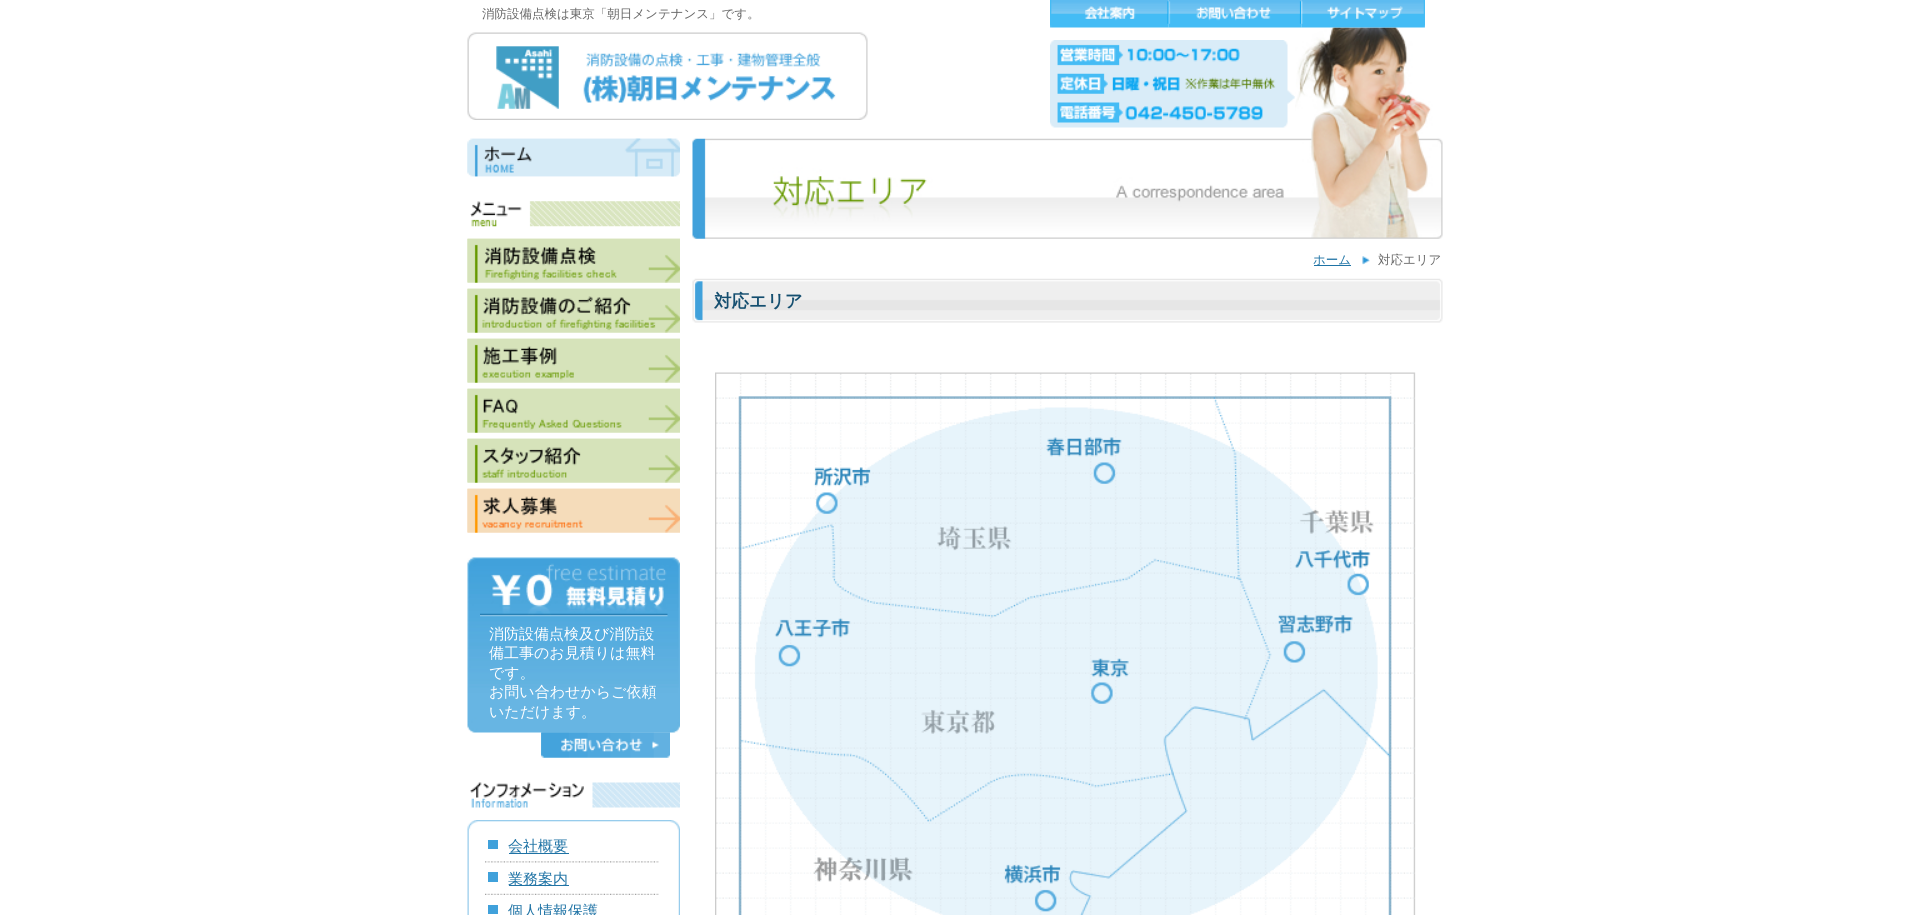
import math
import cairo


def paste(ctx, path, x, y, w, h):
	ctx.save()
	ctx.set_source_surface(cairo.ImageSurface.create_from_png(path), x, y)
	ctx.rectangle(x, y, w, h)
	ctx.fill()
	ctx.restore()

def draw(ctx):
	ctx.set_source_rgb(1, 1, 1)
	ctx.paint()
	paste(ctx, 'media/6.png', 692, 27, 751, 212)
	paste(ctx, 'media/1.png', 1050, 0, 119, 28)
	paste(ctx, 'media/2.png', 1168, 0, 134, 28)
	paste(ctx, 'media/3.png', 1301, 0, 124, 28)
	paste(ctx, 'media/4.png', 467, 32, 401, 88)
	paste(ctx, 'media/5.png', 1050, 40, 245, 88)
	ctx.select_font_face('WenQuanYi Zen Hei Medium')
	ctx.set_font_size(12.5)
	ctx.set_source_rgb(0.4, 0.4, 0.4)
	ctx.move_to(482, 18)
	ctx.show_text('消防設備点検は東京「朝日メンテナンス」です。')
	ctx.set_source_rgb(0.122, 0.451, 0.647)
	ctx.rectangle(1314, 265, 37, 1)
	ctx.fill()
	ctx.move_to(1313, 264)
	ctx.show_text('ホーム')
	paste(ctx, 'media/7.png', 1362, 256, 8, 9)
	ctx.set_source_rgb(0.4, 0.4, 0.4)
	ctx.move_to(1378, 264)
	ctx.show_text('対応エリア')
	paste(ctx, 'media/8.png', 692, 278, 751, 45)
	ctx.select_font_face('WenQuanYi Zen Hei', cairo.FONT_SLANT_NORMAL, cairo.FONT_WEIGHT_BOLD)
	ctx.set_font_size(17.5)
	ctx.set_source_rgb(0.082, 0.306, 0.435)
	ctx.move_to(714, 307)
	ctx.show_text('対応エリア')
	paste(ctx, 'media/9.png', 715, 372, 701, 543)
	paste(ctx, 'media/10.png', 467, 138, 213, 39)
	paste(ctx, 'media/11.png', 467, 138, 213, 39)
	paste(ctx, 'media/12.png', 470, 201, 210, 26)
	paste(ctx, 'media/13.png', 467, 238, 213, 295)
	paste(ctx, 'media/14.png', 467, 238, 213, 45)
	paste(ctx, 'media/15.png', 467, 288, 213, 45)
	paste(ctx, 'media/16.png', 467, 338, 213, 45)
	paste(ctx, 'media/17.png', 467, 388, 213, 45)
	paste(ctx, 'media/18.png', 467, 438, 213, 45)
	paste(ctx, 'media/19.png', 467, 488, 213, 45)
	paste(ctx, 'media/20.png', 467, 557, 213, 176)
	paste(ctx, 'media/21.png', 480, 563, 188, 54)
	ctx.select_font_face('WenQuanYi Zen Hei Medium')
	ctx.set_font_size(15)
	ctx.set_source_rgb(1, 1, 1)
	for x, y, s in [
		(489, 639, '消防設備点検及び消防設'),
		(489, 658, '備工事のお見積りは無料'),
		(489, 678, 'です。'),
		(489, 697, 'お問い合わせからご依頼'),
		(489, 717, 'いただけます。'),
	]:
		ctx.move_to(x, y)
		ctx.show_text(s)
	paste(ctx, 'media/22.png', 541, 732, 129, 26)
	paste(ctx, 'media/23.png', 541, 732, 129, 26)
	paste(ctx, 'media/24.png', 470, 782, 210, 26)
	paste(ctx, 'media/25.png', 467, 820, 213, 95)
	paste(ctx, 'media/26.png', 485, 861, 174, 2)
	ctx.set_source_rgb(0.122, 0.451, 0.647)
	ctx.rectangle(509, 853, 60, 1)
	ctx.fill()
	ctx.move_to(508, 851)
	ctx.show_text('会社概要')
	ctx.set_source_rgb(0.251, 0.631, 0.859)
	ctx.rectangle(488, 840, 10, 9)
	ctx.fill()
	paste(ctx, 'media/27.png', 485, 893, 174, 2)
	ctx.set_source_rgb(0.122, 0.451, 0.647)
	ctx.rectangle(509, 885, 60, 1)
	ctx.fill()
	ctx.move_to(508, 884)
	ctx.show_text('業務案内')
	ctx.set_source_rgb(0.251, 0.631, 0.859)
	ctx.rectangle(488, 872, 10, 10)
	ctx.fill()
	ctx.set_source_rgb(0.122, 0.451, 0.647)
	ctx.move_to(508, 916)
	ctx.show_text('個人情報保護')
	ctx.set_source_rgb(0.251, 0.631, 0.859)
	ctx.rectangle(488, 905, 10, 9)
	ctx.fill()


surface = cairo.ImageSurface(cairo.FORMAT_RGB24, 1908, 915)
ctx = cairo.Context(surface)
options = cairo.FontOptions()
options.set_hint_metrics(cairo.HINT_METRICS_OFF)
options.set_hint_style(cairo.HINT_STYLE_NONE)
ctx.set_font_options(options)
ctx.set_miter_limit(4)
draw(ctx)
surface.write_to_png('image.png')
